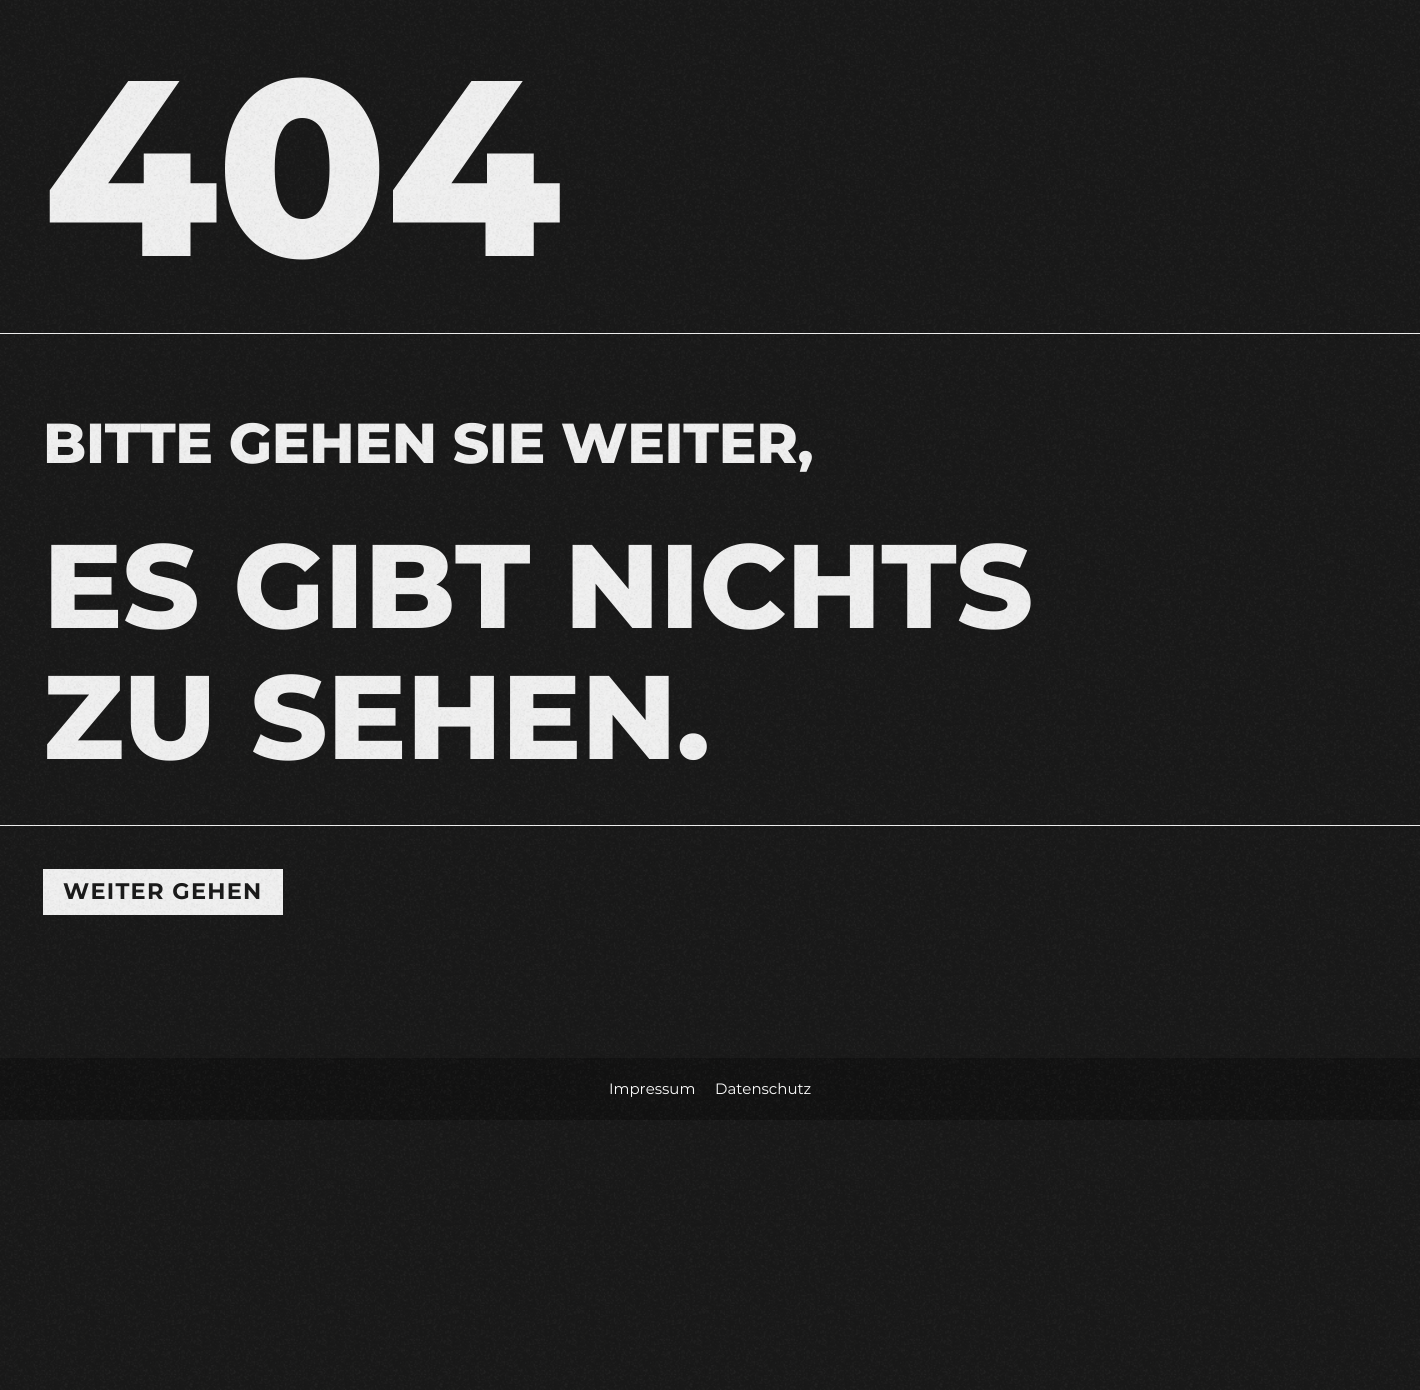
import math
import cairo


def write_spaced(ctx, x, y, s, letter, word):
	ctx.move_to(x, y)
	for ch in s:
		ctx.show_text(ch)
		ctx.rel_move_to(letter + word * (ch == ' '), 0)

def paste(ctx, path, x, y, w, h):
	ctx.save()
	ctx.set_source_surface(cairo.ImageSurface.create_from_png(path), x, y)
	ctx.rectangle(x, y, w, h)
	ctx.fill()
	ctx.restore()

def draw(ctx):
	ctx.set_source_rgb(0.094, 0.094, 0.094)
	ctx.paint()
	ctx.select_font_face('Montserrat ExtraBold')
	ctx.set_font_size(250)
	ctx.set_source_rgb(0.941, 0.941, 0.941)
	write_spaced(ctx, 43, 256, '404', -1.5, 0)
	ctx.rectangle(0, 333, 1420, 1)
	ctx.fill()
	ctx.rectangle(0, 825, 1420, 1)
	ctx.fill()
	ctx.set_font_size(56.25)
	write_spaced(ctx, 43, 463, 'BITTE GEHEN SIE WEITER,', -0.35, 0)
	ctx.set_font_size(118.75)
	write_spaced(ctx, 43, 628, 'ES GIBT NICHTS', -0.35, 0)
	write_spaced(ctx, 43, 759, 'ZU SEHEN.', -0.35, 0)
	ctx.rectangle(43, 869, 240, 46)
	ctx.fill()
	ctx.select_font_face('Montserrat', cairo.FONT_SLANT_NORMAL, cairo.FONT_WEIGHT_BOLD)
	ctx.set_font_size(22.5)
	ctx.set_source_rgb(0.094, 0.094, 0.094)
	write_spaced(ctx, 63, 899, 'WEITER GEHEN', 1.25, 0)
	ctx.set_source_rgb(0.067, 0.067, 0.067)
	ctx.rectangle(0, 1058, 1420, 62)
	ctx.fill()
	ctx.select_font_face('Montserrat')
	ctx.set_font_size(15)
	ctx.set_source_rgb(1, 1, 1)
	ctx.move_to(609, 1094)
	ctx.show_text('Impressum')
	ctx.move_to(715, 1094)
	ctx.show_text('Datenschutz')
	paste(ctx, 'media/1.png', 0, 0, 1420, 1390)


surface = cairo.ImageSurface(cairo.FORMAT_RGB24, 1420, 1390)
ctx = cairo.Context(surface)
options = cairo.FontOptions()
options.set_hint_metrics(cairo.HINT_METRICS_OFF)
options.set_hint_style(cairo.HINT_STYLE_NONE)
ctx.set_font_options(options)
ctx.set_miter_limit(4)
draw(ctx)
surface.write_to_png('image.png')
